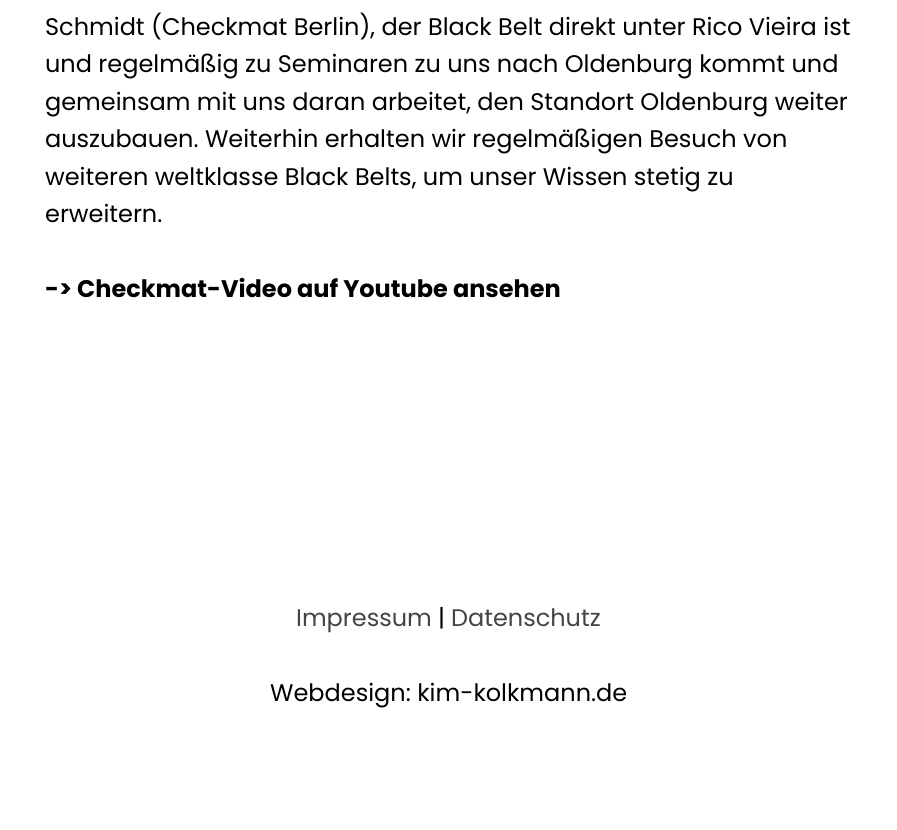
import math
import cairo


def draw(ctx):
	ctx.set_source_rgb(1, 1, 1)
	ctx.paint()
	ctx.select_font_face('Poppins')
	ctx.set_font_size(24)
	ctx.set_source_rgb(0, 0, 0)
	for x, y, s in [
		(45, 35, 'Schmidt (Checkmat Berlin), der Black Belt direkt unter Rico Vieira ist'),
		(45, 72, 'und regelmäßig zu Seminaren zu uns nach Oldenburg kommt und'),
		(45, 110, 'gemeinsam mit uns daran arbeitet, den Standort Oldenburg weiter'),
		(45, 147, 'auszubauen. Weiterhin erhalten wir regelmäßigen Besuch von'),
		(45, 185, 'weiteren weltklasse Black Belts, um unser Wissen stetig zu'),
		(45, 222, 'erweitern.'),
	]:
		ctx.move_to(x, y)
		ctx.show_text(s)
	ctx.select_font_face('Poppins', cairo.FONT_SLANT_NORMAL, cairo.FONT_WEIGHT_BOLD)
	ctx.move_to(45, 297)
	ctx.show_text('-> Checkmat-Video auf Youtube ansehen')
	ctx.select_font_face('Poppins')
	ctx.set_source_rgb(0.267, 0.267, 0.267)
	ctx.move_to(296, 626)
	ctx.show_text('Impressum')
	ctx.set_source_rgb(0, 0, 0)
	ctx.move_to(438, 626)
	ctx.show_text('|')
	ctx.set_source_rgb(0.267, 0.267, 0.267)
	ctx.move_to(451, 626)
	ctx.show_text('Datenschutz')
	ctx.set_source_rgb(0, 0, 0)
	ctx.move_to(270, 701)
	ctx.show_text('Webdesign: kim-kolkmann.de')


surface = cairo.ImageSurface(cairo.FORMAT_RGB24, 897, 830)
ctx = cairo.Context(surface)
options = cairo.FontOptions()
options.set_hint_metrics(cairo.HINT_METRICS_OFF)
options.set_hint_style(cairo.HINT_STYLE_NONE)
ctx.set_font_options(options)
ctx.set_miter_limit(4)
draw(ctx)
surface.write_to_png('image.png')
